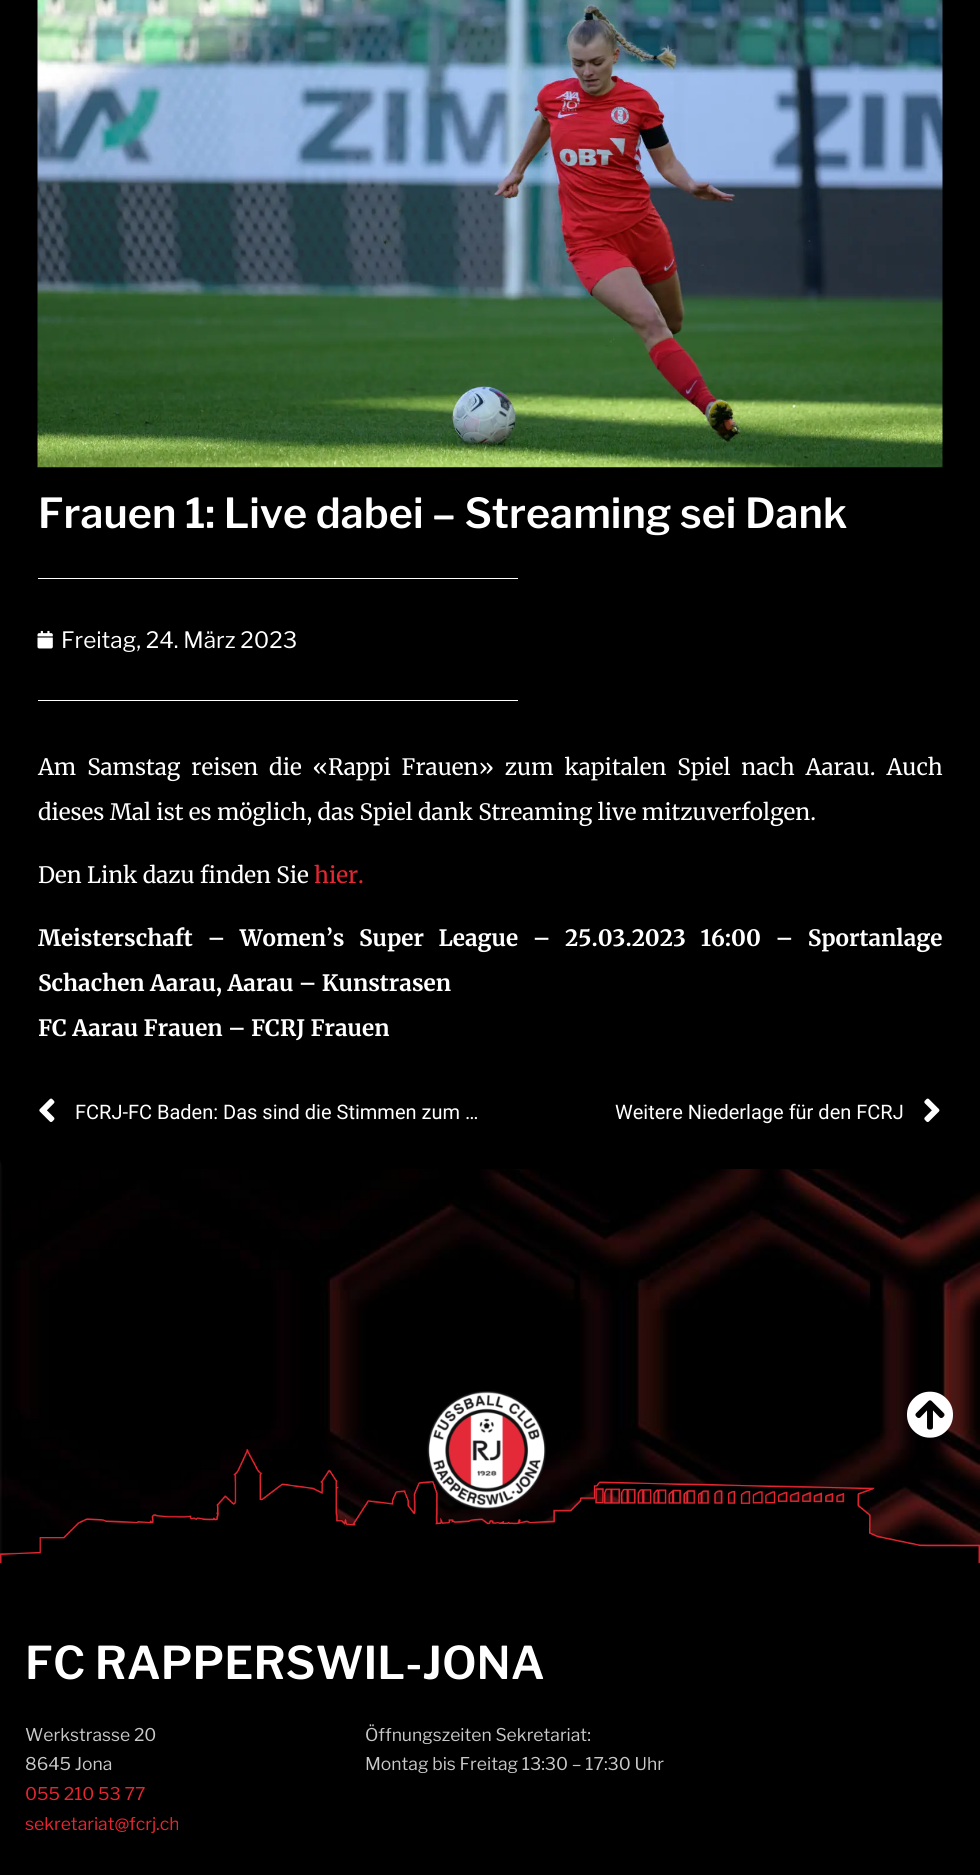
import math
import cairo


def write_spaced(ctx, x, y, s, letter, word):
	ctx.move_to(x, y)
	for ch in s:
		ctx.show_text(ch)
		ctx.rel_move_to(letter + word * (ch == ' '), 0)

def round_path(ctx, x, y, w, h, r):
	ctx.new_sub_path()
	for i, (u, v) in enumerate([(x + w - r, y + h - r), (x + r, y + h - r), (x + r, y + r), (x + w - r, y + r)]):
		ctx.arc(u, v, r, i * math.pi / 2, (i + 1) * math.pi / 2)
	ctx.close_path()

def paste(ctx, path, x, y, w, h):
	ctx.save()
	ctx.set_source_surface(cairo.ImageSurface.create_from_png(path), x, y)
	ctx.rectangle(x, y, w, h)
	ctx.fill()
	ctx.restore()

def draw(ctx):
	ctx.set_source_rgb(1, 1, 1)
	ctx.paint()
	paste(ctx, 'media/1.png', 0, 1159, 980, 404)
	ctx.set_source_rgb(0, 0, 0)
	round_path(ctx, 0, -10, 980, 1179, 10)
	ctx.fill()
	paste(ctx, 'media/2.png', 37, 0, 906, 468)
	ctx.select_font_face('Libre Franklin Thin')
	ctx.set_font_size(41.25)
	ctx.set_source_rgb(1, 1, 1)
	ctx.move_to(38, 528)
	ctx.show_text('Frauen 1: Live dabei – Streaming sei Dank')
	ctx.rectangle(38, 578, 480, 1)
	ctx.fill()
	paste(ctx, 'media/3.png', 37, 630, 16, 19)
	ctx.select_font_face('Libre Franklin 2 Thin')
	ctx.set_font_size(22.5)
	ctx.move_to(61, 648)
	ctx.show_text('Freitag, 24. März 2023')
	ctx.rectangle(38, 700, 480, 1)
	ctx.fill()
	ctx.select_font_face('Merriweather')
	write_spaced(ctx, 38, 775, 'Am Samstag reisen die «Rappi Frauen» zum kapitalen Spiel nach Aarau. Auch', 0, 5.6)
	ctx.move_to(38, 820)
	ctx.show_text('dieses Mal ist es möglich, das Spiel dank Streaming live mitzuverfolgen.')
	ctx.move_to(38, 883)
	ctx.show_text('Den Link dazu finden Sie')
	ctx.set_source_rgb(0.902, 0.149, 0.192)
	ctx.move_to(314, 883)
	ctx.show_text('hier.')
	ctx.select_font_face('Merriweather', cairo.FONT_SLANT_NORMAL, cairo.FONT_WEIGHT_BOLD)
	ctx.set_source_rgb(1, 1, 1)
	write_spaced(ctx, 38, 946, 'Meisterschaft – Women’s Super League – 25.03.2023 16:00 – Sportanlage', 0, 9.25)
	ctx.move_to(38, 991)
	ctx.show_text('Schachen Aarau, Aarau – Kunstrasen')
	ctx.move_to(38, 1036)
	ctx.show_text('FC Aarau Frauen – FCRJ Frauen')
	paste(ctx, 'media/4.png', 39, 1098, 16, 24)
	ctx.select_font_face('Roboto')
	ctx.set_font_size(20)
	ctx.move_to(75, 1119)
	ctx.show_text('FCRJ-FC Baden: Das sind die Stimmen zum …')
	ctx.move_to(615, 1119)
	ctx.show_text('Weitere Niederlage für den FCRJ')
	paste(ctx, 'media/5.png', 924, 1098, 16, 24)
	paste(ctx, 'media/6.png', 0, 1448, 980, 115)
	paste(ctx, 'media/7.png', 427, 1391, 119, 119)
	paste(ctx, 'media/8.png', 907, 1391, 46, 47)
	ctx.set_source_rgb(0, 0, 0)
	ctx.rectangle(0, 1563, 980, 312)
	ctx.fill()
	ctx.select_font_face('Libre Franklin Thin')
	ctx.set_font_size(45)
	ctx.set_source_rgb(1, 1, 1)
	ctx.move_to(25, 1679)
	ctx.show_text('FC RAPPERSWIL-JONA')
	ctx.select_font_face('Libre Franklin 2 Thin')
	ctx.set_font_size(17.5)
	ctx.set_source_rgb(0.788, 0.788, 0.788)
	ctx.move_to(25, 1741)
	ctx.show_text('Werkstrasse 20')
	ctx.move_to(25, 1770)
	ctx.show_text('8645 Jona')
	ctx.set_source_rgb(0.902, 0.149, 0.192)
	ctx.move_to(25, 1800)
	ctx.show_text('055 210 53 77')
	ctx.move_to(25, 1830)
	ctx.show_text('sekretariat@fcrj.ch')
	ctx.set_source_rgb(0.788, 0.788, 0.788)
	ctx.move_to(365, 1741)
	ctx.show_text('Öffnungszeiten Sekretariat:')
	ctx.move_to(365, 1770)
	ctx.show_text('Montag bis Freitag 13:30 – 17:30 Uhr')


surface = cairo.ImageSurface(cairo.FORMAT_RGB24, 980, 1875)
ctx = cairo.Context(surface)
options = cairo.FontOptions()
options.set_hint_metrics(cairo.HINT_METRICS_OFF)
options.set_hint_style(cairo.HINT_STYLE_NONE)
ctx.set_font_options(options)
ctx.set_miter_limit(4)
draw(ctx)
surface.write_to_png('image.png')
